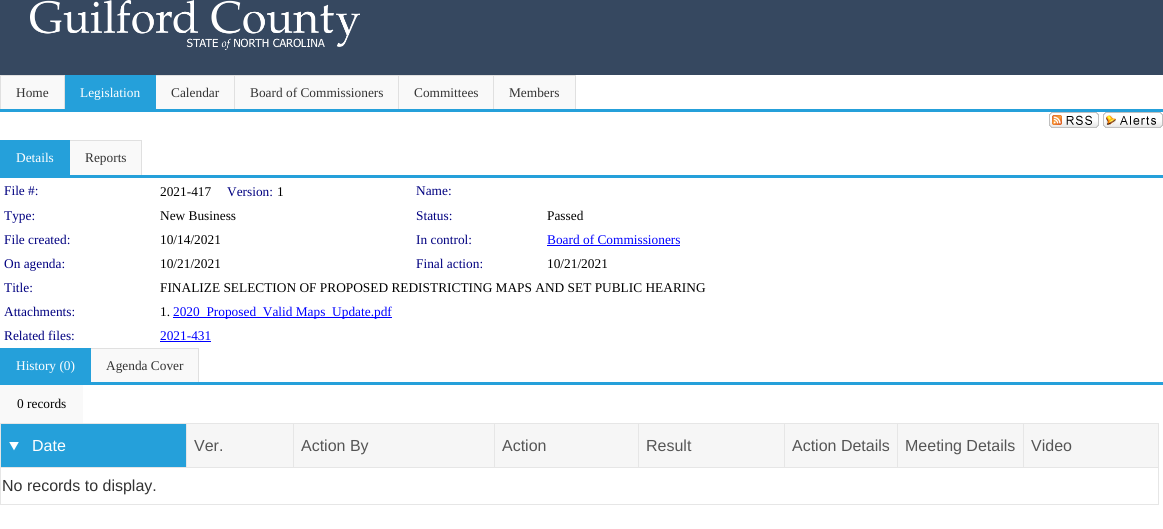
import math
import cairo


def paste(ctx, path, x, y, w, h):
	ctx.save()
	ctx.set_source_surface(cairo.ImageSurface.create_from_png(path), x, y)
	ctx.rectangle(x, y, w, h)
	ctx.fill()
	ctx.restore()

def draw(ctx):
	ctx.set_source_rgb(1, 1, 1)
	ctx.paint()
	ctx.set_source_rgb(0.212, 0.282, 0.376)
	ctx.rectangle(0, 0, 1163, 75)
	ctx.fill()
	paste(ctx, 'media/1.png', 30, 0, 330, 50)
	ctx.set_source_rgb(0.145, 0.627, 0.855)
	ctx.rectangle(0, 109, 1163, 3)
	ctx.fill()
	ctx.set_source_rgb(0.976, 0.976, 0.976)
	ctx.rectangle(1, 76, 63, 33)
	ctx.fill()
	ctx.set_source_rgb(0.878, 0.878, 0.878)
	ctx.rectangle(0, 75, 65, 1)
	ctx.rectangle(64, 75, 1, 34)
	ctx.rectangle(0, 75, 1, 34)
	ctx.fill()
	ctx.select_font_face('Liberation Serif')
	ctx.set_font_size(13.35)
	ctx.set_source_rgb(0.2, 0.2, 0.2)
	ctx.move_to(16, 97)
	ctx.show_text('Home')
	ctx.set_source_rgb(0.145, 0.627, 0.855)
	ctx.rectangle(65, 75, 91, 34)
	ctx.fill()
	ctx.set_source_rgb(1, 1, 1)
	ctx.move_to(80, 97)
	ctx.show_text('Legislation')
	ctx.set_source_rgb(0.976, 0.976, 0.976)
	ctx.rectangle(156, 76, 78, 33)
	ctx.fill()
	ctx.set_source_rgb(0.878, 0.878, 0.878)
	ctx.rectangle(156, 75, 420, 1)
	ctx.rectangle(234, 75, 1, 34)
	ctx.fill()
	ctx.set_source_rgb(0.2, 0.2, 0.2)
	ctx.move_to(171, 97)
	ctx.show_text('Calendar')
	ctx.set_source_rgb(0.976, 0.976, 0.976)
	ctx.rectangle(235, 76, 163, 33)
	ctx.fill()
	ctx.set_source_rgb(0.878, 0.878, 0.878)
	ctx.rectangle(398, 75, 1, 34)
	ctx.fill()
	ctx.set_source_rgb(0.2, 0.2, 0.2)
	ctx.move_to(250, 97)
	ctx.show_text('Board of Commissioners')
	ctx.set_source_rgb(0.976, 0.976, 0.976)
	ctx.rectangle(399, 76, 94, 33)
	ctx.fill()
	ctx.set_source_rgb(0.878, 0.878, 0.878)
	ctx.rectangle(493, 75, 1, 34)
	ctx.fill()
	ctx.set_source_rgb(0.2, 0.2, 0.2)
	ctx.move_to(414, 97)
	ctx.show_text('Committees')
	ctx.set_source_rgb(0.976, 0.976, 0.976)
	ctx.rectangle(494, 76, 81, 33)
	ctx.fill()
	ctx.set_source_rgb(0.878, 0.878, 0.878)
	ctx.rectangle(575, 75, 1, 34)
	ctx.fill()
	ctx.set_source_rgb(0.2, 0.2, 0.2)
	ctx.move_to(509, 97)
	ctx.show_text('Members')
	paste(ctx, 'media/2.png', 1049, 112, 50, 16)
	paste(ctx, 'media/3.png', 1103, 112, 60, 16)
	ctx.set_source_rgb(0.145, 0.627, 0.855)
	ctx.rectangle(0, 175, 1163, 3)
	ctx.fill()
	ctx.rectangle(0, 140, 70, 35)
	ctx.fill()
	ctx.set_source_rgb(1, 1, 1)
	ctx.move_to(16, 162)
	ctx.show_text('Details')
	ctx.set_source_rgb(0.976, 0.976, 0.976)
	ctx.rectangle(70, 141, 71, 34)
	ctx.fill()
	ctx.set_source_rgb(0.878, 0.878, 0.878)
	ctx.rectangle(70, 140, 72, 1)
	ctx.rectangle(141, 140, 1, 35)
	ctx.fill()
	ctx.set_source_rgb(0.2, 0.2, 0.2)
	ctx.move_to(85, 162)
	ctx.show_text('Reports')
	ctx.set_source_rgb(0, 0, 0.502)
	ctx.move_to(4, 195)
	ctx.show_text('File #:')
	ctx.set_source_rgb(0, 0, 0)
	ctx.move_to(160, 196)
	ctx.show_text('2021-417')
	ctx.set_source_rgb(0, 0, 0.502)
	ctx.move_to(227, 196)
	ctx.show_text('Version:')
	ctx.set_source_rgb(0, 0, 0)
	ctx.move_to(277, 196)
	ctx.show_text('1')
	ctx.set_source_rgb(0, 0, 0.502)
	ctx.move_to(416, 195)
	ctx.show_text('Name:')
	ctx.move_to(4, 220)
	ctx.show_text('Type:')
	ctx.set_source_rgb(0, 0, 0)
	ctx.move_to(160, 220)
	ctx.show_text('New Business')
	ctx.set_source_rgb(0, 0, 0.502)
	ctx.move_to(416, 220)
	ctx.show_text('Status:')
	ctx.set_source_rgb(0, 0, 0)
	ctx.move_to(547, 220)
	ctx.show_text('Passed')
	ctx.set_source_rgb(0, 0, 0.502)
	ctx.move_to(4, 244)
	ctx.show_text('File created:')
	ctx.set_source_rgb(0, 0, 0)
	ctx.move_to(160, 244)
	ctx.show_text('10/14/2021')
	ctx.set_source_rgb(0, 0, 0.502)
	ctx.move_to(416, 244)
	ctx.show_text('In control:')
	ctx.set_source_rgb(0, 0, 1)
	ctx.move_to(547, 244)
	ctx.show_text('Board of Commissioners')
	ctx.rectangle(547, 245, 133, 1)
	ctx.fill()
	ctx.set_source_rgb(0, 0, 0.502)
	ctx.move_to(4, 268)
	ctx.show_text('On agenda:')
	ctx.set_source_rgb(0, 0, 0)
	ctx.move_to(160, 268)
	ctx.show_text('10/21/2021')
	ctx.set_source_rgb(0, 0, 0.502)
	ctx.move_to(416, 268)
	ctx.show_text('Final action:')
	ctx.set_source_rgb(0, 0, 0)
	ctx.move_to(547, 268)
	ctx.show_text('10/21/2021')
	ctx.set_source_rgb(0, 0, 0.502)
	ctx.move_to(4, 292)
	ctx.show_text('Title:')
	ctx.set_source_rgb(0, 0, 0)
	ctx.move_to(160, 292)
	ctx.show_text('FINALIZE SELECTION OF PROPOSED REDISTRICTING MAPS AND SET PUBLIC HEARING')
	ctx.set_source_rgb(0, 0, 0.502)
	ctx.move_to(4, 316)
	ctx.show_text('Attachments:')
	ctx.set_source_rgb(0, 0, 0)
	ctx.move_to(160, 316)
	ctx.show_text('1.')
	ctx.set_source_rgb(0, 0, 1)
	ctx.rectangle(173, 317, 219, 1)
	ctx.fill()
	ctx.move_to(173, 316)
	ctx.show_text('2020_Proposed_Valid Maps_Update.pdf')
	ctx.set_source_rgb(0, 0, 0.502)
	ctx.move_to(4, 340)
	ctx.show_text('Related files:')
	ctx.set_source_rgb(0, 0, 1)
	ctx.move_to(160, 340)
	ctx.show_text('2021-431')
	ctx.rectangle(160, 341, 51, 1)
	ctx.fill()
	ctx.set_source_rgb(0.145, 0.627, 0.855)
	ctx.rectangle(0, 382, 1163, 3)
	ctx.rectangle(0, 348, 91, 34)
	ctx.fill()
	ctx.set_source_rgb(1, 1, 1)
	ctx.move_to(16, 370)
	ctx.show_text('History (0)')
	ctx.set_source_rgb(0.976, 0.976, 0.976)
	ctx.rectangle(91, 349, 107, 33)
	ctx.fill()
	ctx.set_source_rgb(0.878, 0.878, 0.878)
	ctx.rectangle(91, 348, 108, 1)
	ctx.rectangle(198, 348, 1, 34)
	ctx.fill()
	ctx.set_source_rgb(0.2, 0.2, 0.2)
	ctx.move_to(106, 370)
	ctx.show_text('Agenda Cover')
	ctx.set_source_rgb(0.976, 0.976, 0.976)
	ctx.rectangle(0, 385, 83, 38)
	ctx.fill()
	ctx.set_source_rgb(0, 0, 0)
	ctx.move_to(17, 408)
	ctx.show_text('0 records')
	ctx.rectangle(0.5, 423.5, 1158, 81)
	ctx.set_source_rgb(0.902, 0.902, 0.902)
	ctx.set_line_width(1)
	ctx.stroke()
	ctx.set_source_rgb(0.145, 0.627, 0.855)
	ctx.rectangle(1, 424, 185, 43)
	ctx.fill()
	ctx.set_source_rgb(0.902, 0.902, 0.902)
	ctx.rectangle(1, 467, 1157, 1)
	ctx.fill()
	paste(ctx, 'media/4.png', 9, 442, 10, 9)
	ctx.select_font_face('Liberation Sans')
	ctx.set_font_size(16)
	ctx.set_source_rgb(1, 1, 1)
	ctx.move_to(32, 451)
	ctx.show_text('Date')
	ctx.set_source_rgb(0.961, 0.961, 0.961)
	ctx.rectangle(187, 424, 106, 43)
	ctx.fill()
	ctx.set_source_rgb(0.902, 0.902, 0.902)
	ctx.rectangle(186, 424, 1, 44)
	ctx.fill()
	ctx.set_source_rgb(0.333, 0.333, 0.333)
	ctx.move_to(194, 451)
	ctx.show_text('Ver.')
	ctx.set_source_rgb(0.961, 0.961, 0.961)
	ctx.rectangle(294, 424, 200, 43)
	ctx.fill()
	ctx.set_source_rgb(0.902, 0.902, 0.902)
	ctx.rectangle(293, 424, 1, 44)
	ctx.fill()
	ctx.set_source_rgb(0.333, 0.333, 0.333)
	ctx.move_to(301, 451)
	ctx.show_text('Action By')
	ctx.set_source_rgb(0.961, 0.961, 0.961)
	ctx.rectangle(495, 424, 143, 43)
	ctx.fill()
	ctx.set_source_rgb(0.902, 0.902, 0.902)
	ctx.rectangle(494, 424, 1, 44)
	ctx.fill()
	ctx.set_source_rgb(0.333, 0.333, 0.333)
	ctx.move_to(502, 451)
	ctx.show_text('Action')
	ctx.set_source_rgb(0.961, 0.961, 0.961)
	ctx.rectangle(639, 424, 145, 43)
	ctx.fill()
	ctx.set_source_rgb(0.902, 0.902, 0.902)
	ctx.rectangle(638, 424, 1, 44)
	ctx.fill()
	ctx.set_source_rgb(0.333, 0.333, 0.333)
	ctx.move_to(646, 451)
	ctx.show_text('Result')
	ctx.set_source_rgb(0.961, 0.961, 0.961)
	ctx.rectangle(785, 424, 112, 43)
	ctx.fill()
	ctx.set_source_rgb(0.902, 0.902, 0.902)
	ctx.rectangle(784, 424, 1, 44)
	ctx.fill()
	ctx.set_source_rgb(0.333, 0.333, 0.333)
	ctx.move_to(792, 451)
	ctx.show_text('Action Details')
	ctx.set_source_rgb(0.961, 0.961, 0.961)
	ctx.rectangle(898, 424, 125, 43)
	ctx.fill()
	ctx.set_source_rgb(0.902, 0.902, 0.902)
	ctx.rectangle(897, 424, 1, 44)
	ctx.fill()
	ctx.set_source_rgb(0.333, 0.333, 0.333)
	ctx.move_to(905, 451)
	ctx.show_text('Meeting Details')
	ctx.set_source_rgb(0.961, 0.961, 0.961)
	ctx.rectangle(1024, 424, 134, 43)
	ctx.fill()
	ctx.set_source_rgb(0.902, 0.902, 0.902)
	ctx.rectangle(1023, 424, 1, 44)
	ctx.fill()
	ctx.set_source_rgb(0.333, 0.333, 0.333)
	ctx.move_to(1031, 451)
	ctx.show_text('Video')
	ctx.set_source_rgb(0.2, 0.2, 0.2)
	ctx.move_to(2, 491)
	ctx.show_text('No records to display.')


surface = cairo.ImageSurface(cairo.FORMAT_RGB24, 1163, 529)
ctx = cairo.Context(surface)
options = cairo.FontOptions()
options.set_hint_metrics(cairo.HINT_METRICS_OFF)
options.set_hint_style(cairo.HINT_STYLE_NONE)
ctx.set_font_options(options)
ctx.set_miter_limit(4)
draw(ctx)
surface.write_to_png('image.png')
